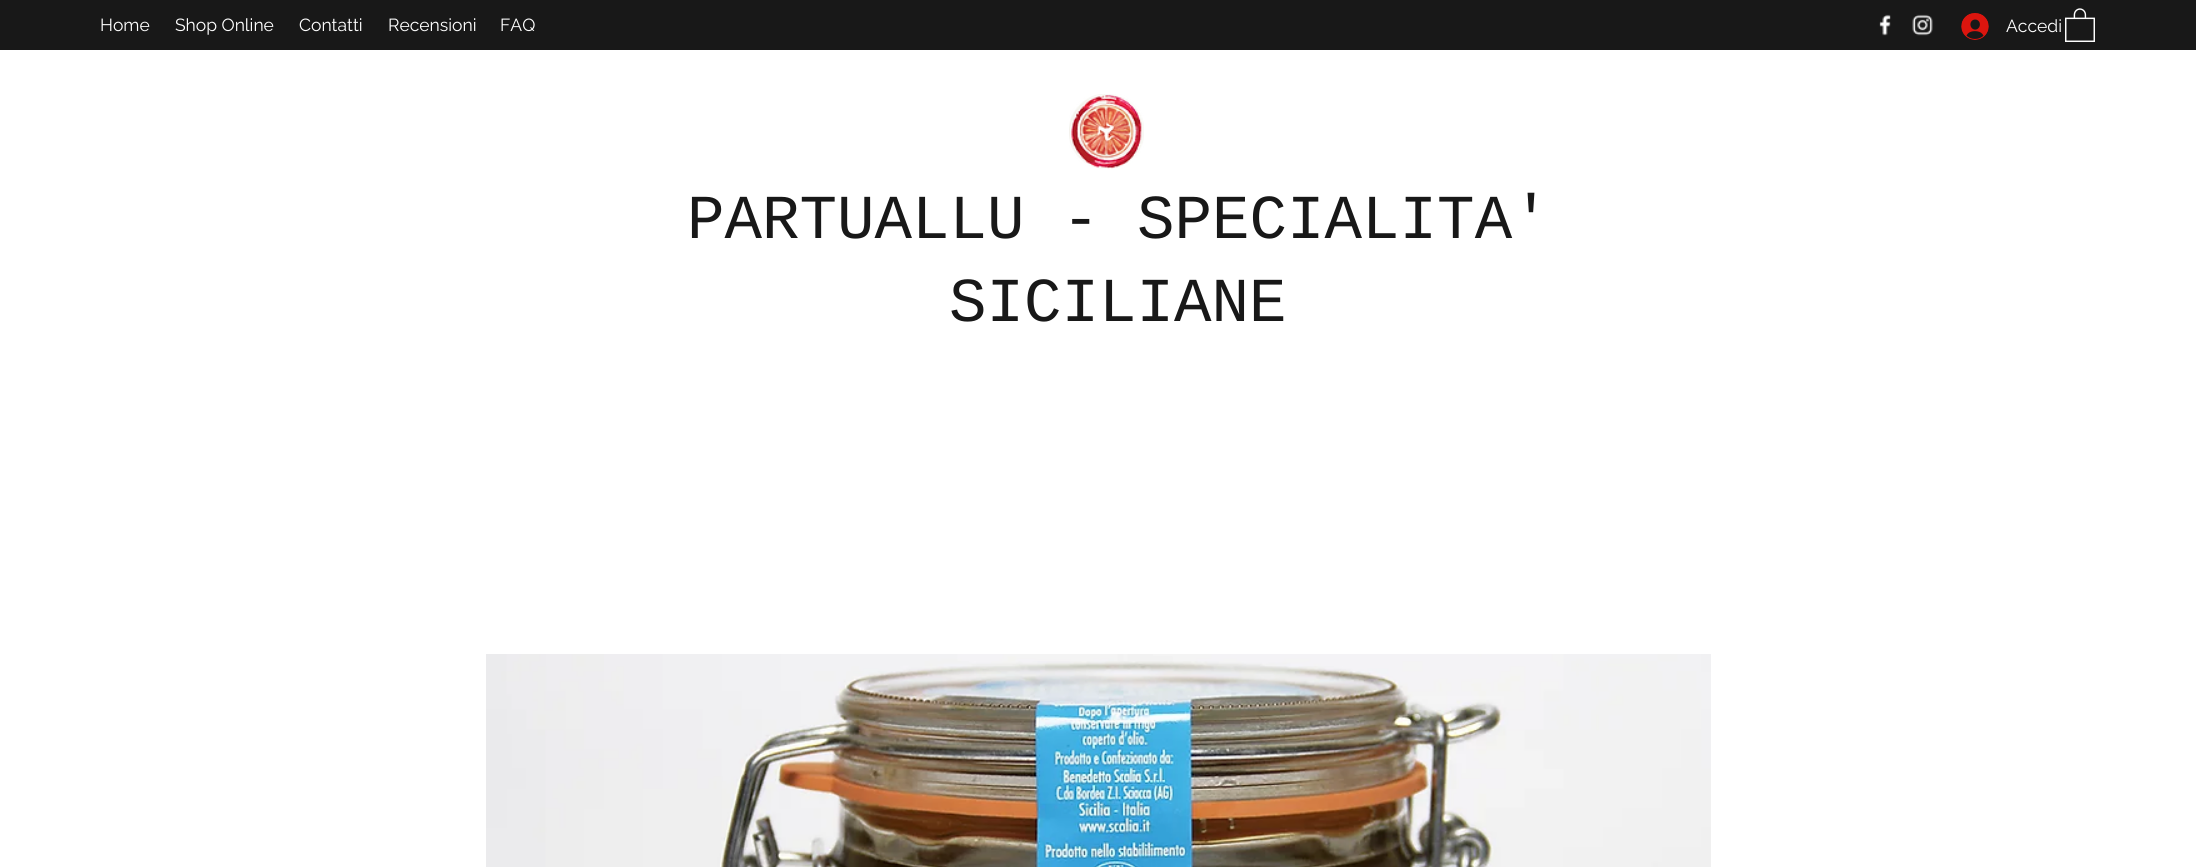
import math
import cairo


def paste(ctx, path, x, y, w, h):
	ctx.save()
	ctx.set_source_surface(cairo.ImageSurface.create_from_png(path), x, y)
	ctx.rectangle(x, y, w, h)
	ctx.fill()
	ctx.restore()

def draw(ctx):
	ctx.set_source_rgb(1, 1, 1)
	ctx.paint()
	ctx.set_source_rgb(0.094, 0.094, 0.094)
	ctx.rectangle(0, 0, 2196, 50)
	ctx.fill()
	ctx.select_font_face('Raleway')
	ctx.set_font_size(17.5)
	ctx.set_source_rgb(1, 1, 1)
	for x, y, s in [
		(100, 31, 'Home'),
		(175, 31, 'Shop Online'),
		(299, 31, 'Contatti'),
		(388, 31, 'Recensioni'),
		(500, 31, 'FAQ'),
	]:
		ctx.move_to(x, y)
		ctx.show_text(s)
	paste(ctx, 'media/1.png', 1879, 14, 12, 22)
	paste(ctx, 'media/2.png', 1912, 14, 21, 22)
	paste(ctx, 'media/3.png', 1961, 13, 28, 27)
	ctx.move_to(2006, 32)
	ctx.show_text('Accedi')
	paste(ctx, 'media/4.png', 2065, 8, 30, 34)
	paste(ctx, 'media/5.png', 1069, 94, 75, 75)
	ctx.select_font_face('Liberation Mono')
	ctx.set_font_size(62.5)
	ctx.set_source_rgb(0.094, 0.094, 0.094)
	ctx.move_to(687, 238)
	ctx.show_text('PARTUALLU - SPECIALITA\'')
	ctx.move_to(949, 321)
	ctx.show_text('SICILIANE')
	paste(ctx, 'media/6.png', 486, 654, 1225, 213)


surface = cairo.ImageSurface(cairo.FORMAT_RGB24, 2196, 867)
ctx = cairo.Context(surface)
options = cairo.FontOptions()
options.set_hint_metrics(cairo.HINT_METRICS_OFF)
options.set_hint_style(cairo.HINT_STYLE_NONE)
ctx.set_font_options(options)
ctx.set_miter_limit(4)
draw(ctx)
surface.write_to_png('image.png')
